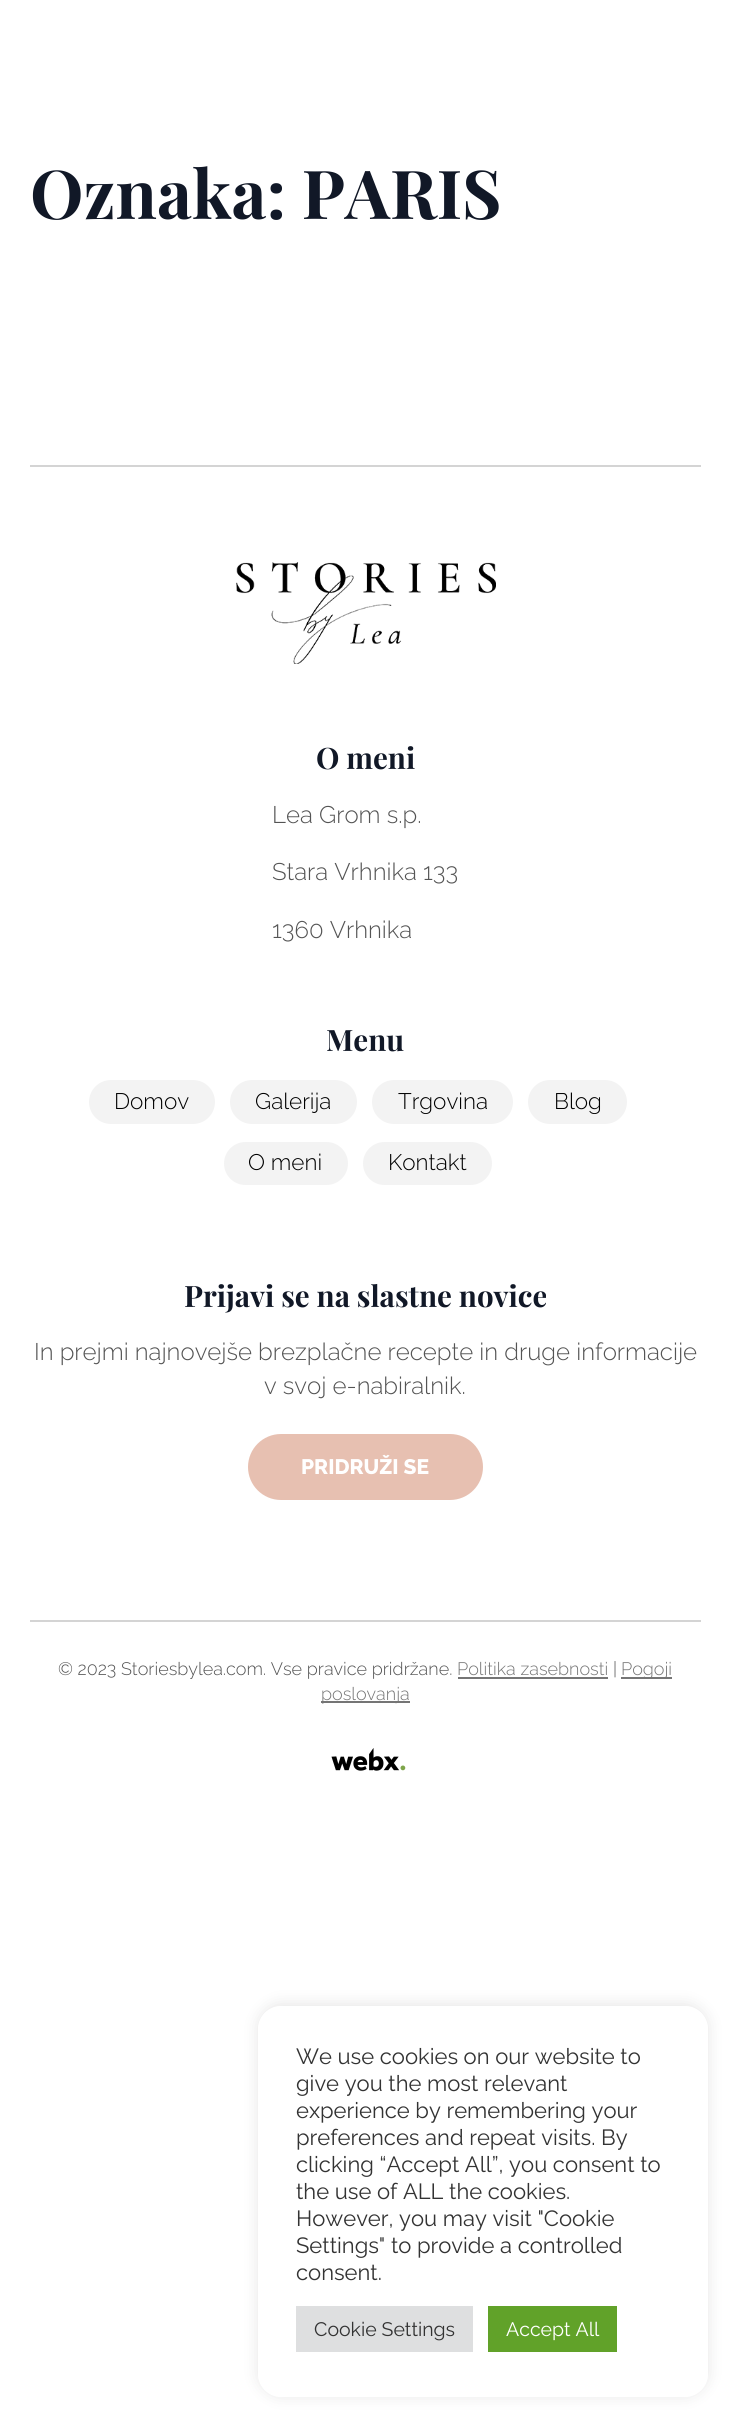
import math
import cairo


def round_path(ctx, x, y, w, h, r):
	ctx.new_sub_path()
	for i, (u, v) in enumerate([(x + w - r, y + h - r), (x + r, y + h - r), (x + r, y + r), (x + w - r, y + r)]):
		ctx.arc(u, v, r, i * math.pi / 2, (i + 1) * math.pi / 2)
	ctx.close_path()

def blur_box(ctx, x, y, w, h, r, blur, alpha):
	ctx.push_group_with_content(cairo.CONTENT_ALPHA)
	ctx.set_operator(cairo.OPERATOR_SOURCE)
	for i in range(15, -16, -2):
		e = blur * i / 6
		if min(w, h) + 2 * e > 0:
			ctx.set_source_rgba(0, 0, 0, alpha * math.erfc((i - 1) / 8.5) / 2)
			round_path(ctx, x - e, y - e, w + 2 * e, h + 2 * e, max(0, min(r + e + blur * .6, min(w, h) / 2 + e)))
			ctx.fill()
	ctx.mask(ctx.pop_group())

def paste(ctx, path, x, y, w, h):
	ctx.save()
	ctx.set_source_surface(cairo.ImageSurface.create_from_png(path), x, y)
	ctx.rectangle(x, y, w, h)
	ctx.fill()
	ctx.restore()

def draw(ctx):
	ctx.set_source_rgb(1, 1, 1)
	ctx.paint()
	ctx.select_font_face('Playfair Display', cairo.FONT_SLANT_NORMAL, cairo.FONT_WEIGHT_BOLD)
	ctx.set_font_size(67.5)
	ctx.set_source_rgb(0.067, 0.094, 0.153)
	ctx.move_to(30, 219)
	ctx.show_text('Oznaka: PARIS')
	ctx.set_source_rgb(0.831, 0.831, 0.831)
	ctx.rectangle(30, 465, 671, 2)
	ctx.fill()
	paste(ctx, 'media/1.png', 236, 562, 260, 102)
	ctx.set_font_size(29.5)
	ctx.set_source_rgb(0.067, 0.094, 0.153)
	ctx.move_to(316, 769)
	ctx.show_text('O meni')
	ctx.select_font_face('Raleway Light')
	ctx.set_font_size(24)
	ctx.set_source_rgb(0.329, 0.329, 0.329)
	for x, y, s in [
		(272, 823, 'Lea Grom s.p.'),
		(272, 880, 'Stara Vrhnika 133'),
		(272, 938, '1360 Vrhnika'),
	]:
		ctx.move_to(x, y)
		ctx.show_text(s)
	ctx.select_font_face('Playfair Display', cairo.FONT_SLANT_NORMAL, cairo.FONT_WEIGHT_BOLD)
	ctx.set_font_size(29.5)
	ctx.set_source_rgb(0.067, 0.094, 0.153)
	ctx.move_to(326, 1051)
	ctx.show_text('Menu')
	ctx.set_source_rgb(0.953, 0.953, 0.953)
	round_path(ctx, 89, 1080, 126, 44, 22)
	ctx.fill()
	ctx.select_font_face('Raleway Light')
	ctx.set_font_size(22.5)
	ctx.set_source_rgb(0, 0, 0)
	ctx.move_to(114, 1109)
	ctx.show_text('Domov')
	ctx.set_source_rgb(0.953, 0.953, 0.953)
	round_path(ctx, 230, 1080, 127, 44, 22)
	ctx.fill()
	ctx.set_source_rgb(0, 0, 0)
	ctx.move_to(255, 1109)
	ctx.show_text('Galerija')
	ctx.set_source_rgb(0.953, 0.953, 0.953)
	round_path(ctx, 372, 1080, 141, 44, 22)
	ctx.fill()
	ctx.set_source_rgb(0, 0, 0)
	ctx.move_to(398, 1109)
	ctx.show_text('Trgovina')
	ctx.set_source_rgb(0.953, 0.953, 0.953)
	round_path(ctx, 528, 1080, 99, 44, 22)
	ctx.fill()
	ctx.set_source_rgb(0, 0, 0)
	ctx.move_to(554, 1109)
	ctx.show_text('Blog')
	ctx.set_source_rgb(0.953, 0.953, 0.953)
	round_path(ctx, 224, 1142, 124, 43, 21.5)
	ctx.fill()
	ctx.set_source_rgb(0, 0, 0)
	ctx.move_to(248, 1170)
	ctx.show_text('O meni')
	ctx.set_source_rgb(0.953, 0.953, 0.953)
	round_path(ctx, 363, 1142, 129, 43, 21.5)
	ctx.fill()
	ctx.set_source_rgb(0, 0, 0)
	ctx.move_to(388, 1170)
	ctx.show_text('Kontakt')
	ctx.select_font_face('Playfair Display', cairo.FONT_SLANT_NORMAL, cairo.FONT_WEIGHT_BOLD)
	ctx.set_font_size(29.5)
	ctx.set_source_rgb(0.067, 0.094, 0.153)
	ctx.move_to(184, 1307)
	ctx.show_text('Prijavi se na slastne novice')
	ctx.select_font_face('Raleway Light')
	ctx.set_font_size(24)
	ctx.set_source_rgb(0.329, 0.329, 0.329)
	ctx.move_to(34, 1360)
	ctx.show_text('In prejmi najnovejše brezplačne recepte in druge informacije')
	ctx.move_to(264, 1394)
	ctx.show_text('v svoj e-nabiralnik.')
	ctx.set_source_rgb(0.906, 0.753, 0.694)
	round_path(ctx, 248, 1434, 235, 66, 33)
	ctx.fill()
	ctx.select_font_face('Raleway ExtraBold')
	ctx.set_font_size(21)
	ctx.set_source_rgb(1, 1, 1)
	ctx.move_to(301, 1474)
	ctx.show_text('PRIDRUŽI SE')
	ctx.set_source_rgb(0.831, 0.831, 0.831)
	ctx.rectangle(30, 1620, 671, 2)
	ctx.fill()
	ctx.select_font_face('Raleway Light')
	ctx.set_font_size(18)
	ctx.set_source_rgb(0.329, 0.329, 0.329)
	ctx.move_to(58, 1675)
	ctx.show_text('© 2023 Storiesbylea.com. Vse pravice pridržane.')
	ctx.set_source_rgb(0.459, 0.459, 0.459)
	ctx.move_to(457, 1675)
	ctx.show_text('Politika zasebnosti')
	ctx.rectangle(458, 1677, 150, 2)
	ctx.fill()
	ctx.set_source_rgb(0.329, 0.329, 0.329)
	ctx.move_to(613, 1675)
	ctx.show_text('|')
	ctx.set_source_rgb(0.459, 0.459, 0.459)
	ctx.rectangle(621, 1677, 51, 2)
	ctx.fill()
	ctx.move_to(621, 1675)
	ctx.show_text('Pogoji')
	ctx.rectangle(321, 1701, 89, 2)
	ctx.fill()
	ctx.move_to(321, 1700)
	ctx.show_text('poslovanja')
	paste(ctx, 'media/2.png', 331, 1748, 75, 23)
	ctx.save()
	ctx.set_fill_rule(cairo.FILL_RULE_EVEN_ODD)
	ctx.new_path()
	ctx.move_to(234, 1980)
	ctx.line_to(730, 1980)
	ctx.line_to(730, 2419)
	ctx.line_to(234, 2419)
	ctx.close_path()
	ctx.move_to(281, 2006)
	ctx.line_to(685, 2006)
	ctx.curve_to(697.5, 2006, 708, 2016.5, 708, 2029)
	ctx.line_to(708, 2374)
	ctx.curve_to(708, 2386.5, 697.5, 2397, 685, 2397)
	ctx.line_to(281, 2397)
	ctx.curve_to(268.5, 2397, 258, 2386.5, 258, 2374)
	ctx.line_to(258, 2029)
	ctx.curve_to(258, 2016.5, 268.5, 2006, 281, 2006)
	ctx.close_path()
	ctx.clip()
	ctx.set_source_rgb(0.675, 0.671, 0.671)
	blur_box(ctx, 258, 2004, 450, 392, 23, 7.5, 0.3)
	ctx.restore()
	ctx.select_font_face('Raleway')
	ctx.set_font_size(22)
	ctx.set_source_rgb(0.2, 0.2, 0.2)
	for x, y, s in [
		(296, 2064, 'We use cookies on our website to'),
		(296, 2091, 'give you the most relevant'),
		(296, 2118, 'experience by remembering your'),
		(296, 2145, 'preferences and repeat visits. By'),
		(296, 2172, 'clicking “Accept All”, you consent to'),
		(296, 2199, 'the use of ALL the cookies.'),
		(296, 2226, 'However, you may visit "Cookie'),
		(296, 2253, 'Settings" to provide a controlled'),
		(296, 2280, 'consent.'),
	]:
		ctx.move_to(x, y)
		ctx.show_text(s)
	ctx.set_source_rgb(0.871, 0.875, 0.878)
	ctx.rectangle(296, 2306, 177, 46)
	ctx.fill()
	ctx.set_font_size(19.5)
	ctx.set_source_rgb(0.2, 0.2, 0.2)
	ctx.move_to(314, 2336)
	ctx.show_text('Cookie Settings')
	ctx.set_source_rgb(0.38, 0.635, 0.161)
	ctx.rectangle(488, 2306, 129, 46)
	ctx.fill()
	ctx.set_source_rgb(1, 1, 1)
	ctx.move_to(506, 2336)
	ctx.show_text('Accept All')


surface = cairo.ImageSurface(cairo.FORMAT_RGB24, 730, 2419)
ctx = cairo.Context(surface)
options = cairo.FontOptions()
options.set_hint_metrics(cairo.HINT_METRICS_OFF)
options.set_hint_style(cairo.HINT_STYLE_NONE)
ctx.set_font_options(options)
ctx.set_miter_limit(4)
draw(ctx)
surface.write_to_png('image.png')
